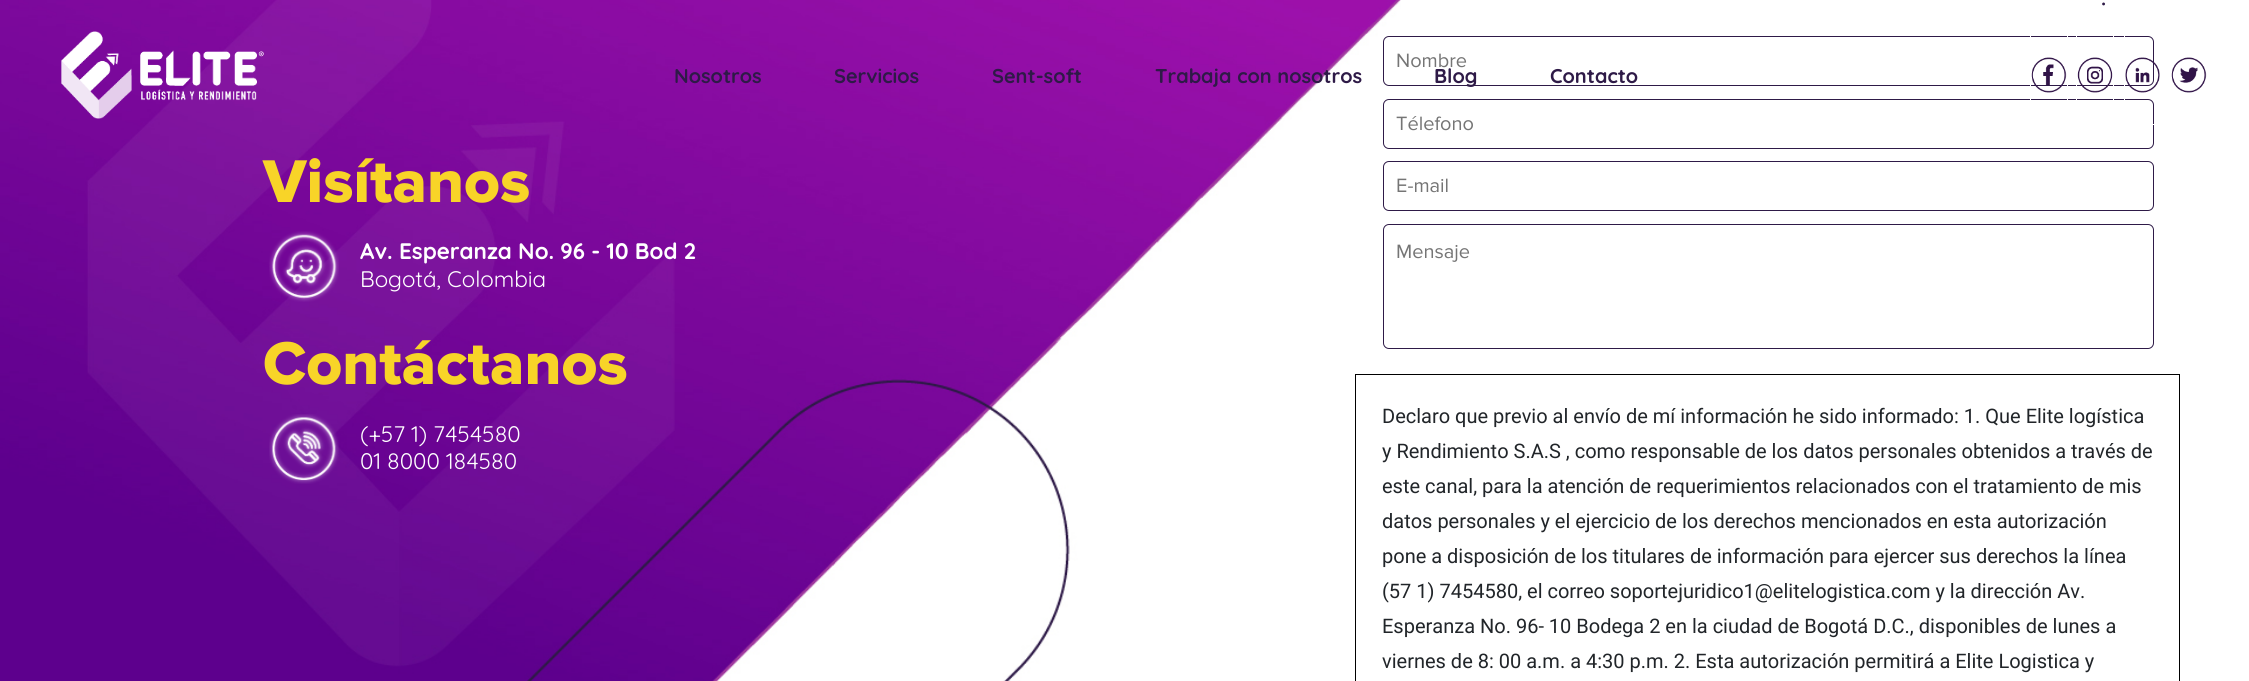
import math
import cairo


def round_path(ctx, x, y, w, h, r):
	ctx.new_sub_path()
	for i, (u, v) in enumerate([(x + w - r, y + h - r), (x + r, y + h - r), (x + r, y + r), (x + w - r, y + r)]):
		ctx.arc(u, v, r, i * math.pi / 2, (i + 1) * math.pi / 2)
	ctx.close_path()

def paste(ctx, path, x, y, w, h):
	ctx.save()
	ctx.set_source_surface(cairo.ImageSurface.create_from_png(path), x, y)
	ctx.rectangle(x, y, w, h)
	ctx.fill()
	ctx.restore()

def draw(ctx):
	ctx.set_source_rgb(1, 1, 1)
	ctx.paint()
	paste(ctx, 'media/1.png', 0, 0, 1401, 681)
	paste(ctx, 'media/2.png', 61, 31, 203, 88)
	ctx.select_font_face('Quicksand', cairo.FONT_SLANT_NORMAL, cairo.FONT_WEIGHT_BOLD)
	ctx.set_font_size(20)
	ctx.set_source_rgb(0.18, 0.102, 0.278)
	for x, y, s in [
		(674, 83, 'Nosotros'),
		(834, 83, 'Servicios'),
		(992, 83, 'Sent-soft'),
		(1155, 83, 'Trabaja con nosotros'),
	]:
		ctx.move_to(x, y)
		ctx.show_text(s)
	round_path(ctx, 1383.5, 36.5, 770, 49, 5.5)
	ctx.set_line_width(1)
	ctx.stroke()
	ctx.move_to(1434, 83)
	ctx.show_text('Blog')
	ctx.move_to(1550, 83)
	ctx.show_text('Contacto')
	paste(ctx, 'media/3.png', 2031, 57, 36, 36)
	round_path(ctx, 1383.5, 99.5, 770, 49, 5.5)
	ctx.stroke()
	ctx.rectangle(2030.5, 25.5, 37, 99)
	ctx.set_source_rgb(1, 1, 1)
	ctx.stroke()
	paste(ctx, 'media/4.png', 2077, 57, 36, 36)
	ctx.rectangle(2076.5, 25.5, 37, 99)
	ctx.stroke()
	paste(ctx, 'media/5.png', 2125, 57, 35, 36)
	ctx.rectangle(2124.5, 25.5, 36, 99)
	ctx.stroke()
	paste(ctx, 'media/6.png', 2171, 57, 36, 36)
	ctx.select_font_face('Proxima Nova Thin')
	ctx.set_font_size(44)
	ctx.set_source_rgb(0.18, 0.102, 0.278)
	ctx.move_to(2099, 5)
	ctx.show_text('.')
	ctx.select_font_face('Proxima Nova')
	ctx.set_font_size(20)
	ctx.set_source_rgb(0.459, 0.459, 0.459)
	ctx.move_to(1396, 67)
	ctx.show_text('Nombre')
	ctx.move_to(1396, 130)
	ctx.show_text('Télefono')
	round_path(ctx, 1383.5, 161.5, 770, 49, 5.5)
	ctx.set_source_rgb(0.18, 0.102, 0.278)
	ctx.stroke()
	ctx.set_source_rgb(0.459, 0.459, 0.459)
	ctx.move_to(1396, 192)
	ctx.show_text('E-mail')
	round_path(ctx, 1383.5, 224.5, 770, 124, 5.5)
	ctx.set_source_rgb(0.18, 0.102, 0.278)
	ctx.stroke()
	ctx.set_source_rgb(0.459, 0.459, 0.459)
	ctx.move_to(1396, 258)
	ctx.show_text('Mensaje')
	ctx.rectangle(1355.5, 374.5, 824, 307)
	ctx.set_source_rgb(0, 0, 0)
	ctx.stroke()
	ctx.select_font_face('Roboto')
	ctx.set_source_rgb(0.129, 0.145, 0.161)
	for x, y, s in [
		(1382, 423, 'Declaro que previo al envío de mí información he sido informado: 1. Que Elite logística'),
		(1382, 458, 'y Rendimiento S.A.S , como responsable de los datos personales obtenidos a través de'),
		(1382, 493, 'este canal, para la atención de requerimientos relacionados con el tratamiento de mis'),
		(1382, 528, 'datos personales y el ejercicio de los derechos mencionados en esta autorización'),
		(1382, 563, 'pone a disposición de los titulares de información para ejercer sus derechos la línea'),
		(1382, 598, '(57 1) 7454580, el correo soportejuridico1@elitelogistica.com y la dirección Av.'),
		(1382, 633, 'Esperanza No. 96- 10 Bodega 2 en la ciudad de Bogotá D.C., disponibles de lunes a'),
		(1382, 668, 'viernes de 8: 00 a.m. a 4:30 p.m. 2. Esta autorización permitirá a Elite Logistica y'),
	]:
		ctx.move_to(x, y)
		ctx.show_text(s)
	ctx.select_font_face('Proxima Nova ExtraBold')
	ctx.set_font_size(62.5)
	ctx.set_source_rgb(0.969, 0.831, 0.157)
	ctx.move_to(263, 202)
	ctx.show_text('Visítanos')
	paste(ctx, 'media/7.png', 269, 231, 70, 71)
	ctx.select_font_face('Quicksand', cairo.FONT_SLANT_NORMAL, cairo.FONT_WEIGHT_BOLD)
	ctx.set_font_size(22.5)
	ctx.set_source_rgb(1, 1, 1)
	ctx.move_to(360, 259)
	ctx.show_text('Av. Esperanza No. 96 - 10 Bod 2')
	ctx.select_font_face('Quicksand')
	ctx.move_to(360, 287)
	ctx.show_text('Bogotá, Colombia')
	ctx.select_font_face('Proxima Nova ExtraBold')
	ctx.set_font_size(62.5)
	ctx.set_source_rgb(0.969, 0.831, 0.157)
	ctx.move_to(263, 384)
	ctx.show_text('Contáctanos')
	paste(ctx, 'media/8.png', 269, 414, 70, 70)
	ctx.select_font_face('Quicksand')
	ctx.set_font_size(22.5)
	ctx.set_source_rgb(1, 1, 1)
	ctx.move_to(360, 442)
	ctx.show_text('(+57 1) 7454580')
	ctx.move_to(360, 469)
	ctx.show_text('01 8000 184580')


surface = cairo.ImageSurface(cairo.FORMAT_RGB24, 2249, 681)
ctx = cairo.Context(surface)
options = cairo.FontOptions()
options.set_hint_metrics(cairo.HINT_METRICS_OFF)
options.set_hint_style(cairo.HINT_STYLE_NONE)
ctx.set_font_options(options)
ctx.set_miter_limit(4)
draw(ctx)
surface.write_to_png('image.png')
